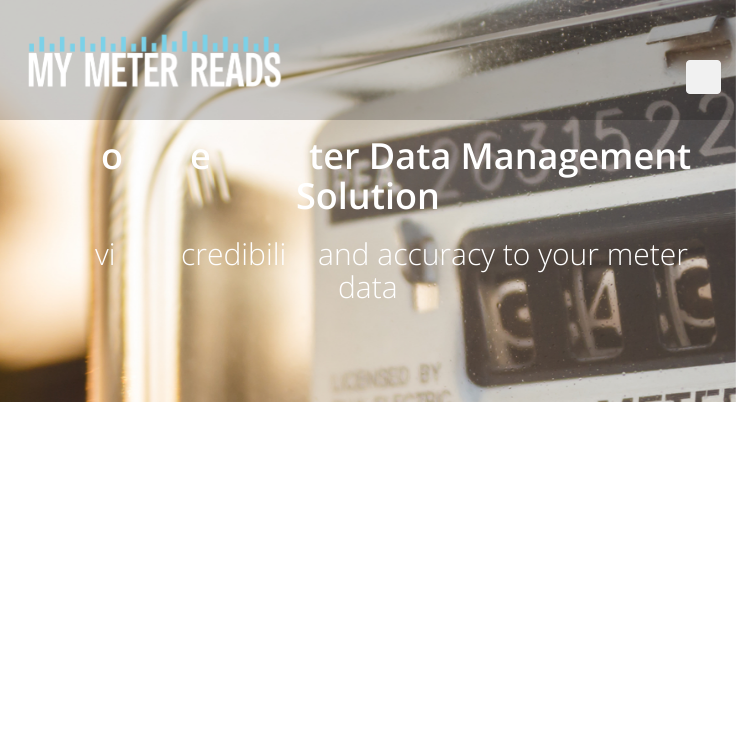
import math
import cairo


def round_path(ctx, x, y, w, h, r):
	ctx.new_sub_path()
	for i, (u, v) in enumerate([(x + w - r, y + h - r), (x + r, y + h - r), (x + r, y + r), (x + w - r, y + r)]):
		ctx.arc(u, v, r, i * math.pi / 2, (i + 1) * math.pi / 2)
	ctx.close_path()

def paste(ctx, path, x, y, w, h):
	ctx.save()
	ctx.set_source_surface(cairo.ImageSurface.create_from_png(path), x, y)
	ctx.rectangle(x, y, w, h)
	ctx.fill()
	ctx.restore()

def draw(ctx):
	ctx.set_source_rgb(1, 1, 1)
	ctx.paint()
	paste(ctx, 'media/2.png', 0, 0, 736, 402)
	ctx.set_source_rgba(0, 0, 0, 0.2)
	ctx.rectangle(0, 0, 736, 120)
	ctx.fill()
	paste(ctx, 'media/1.png', 28, 31, 254, 57)
	ctx.set_source_rgb(0.945, 0.945, 0.945)
	round_path(ctx, 686, 60, 35, 34, 4)
	ctx.fill()
	ctx.select_font_face('Open Sans SemiBold')
	ctx.set_font_size(36)
	ctx.set_source_rgb(1, 1, 1)
	for x, y, s in [
		(101, 169, 'o'),
		(190, 169, 'e'),
		(309, 169, 'ter Data Management'),
		(296, 209, 'Solution'),
	]:
		ctx.move_to(x, y)
		ctx.show_text(s)
	ctx.select_font_face('Open Sans Light')
	ctx.set_font_size(30)
	for x, y, s in [
		(95, 265, 'vi'),
		(181, 265, 'credibili'),
		(318, 265, 'and accuracy to your meter'),
		(338, 298, 'data'),
	]:
		ctx.move_to(x, y)
		ctx.show_text(s)


surface = cairo.ImageSurface(cairo.FORMAT_RGB24, 736, 750)
ctx = cairo.Context(surface)
options = cairo.FontOptions()
options.set_hint_metrics(cairo.HINT_METRICS_OFF)
options.set_hint_style(cairo.HINT_STYLE_NONE)
ctx.set_font_options(options)
ctx.set_miter_limit(4)
draw(ctx)
surface.write_to_png('image.png')
